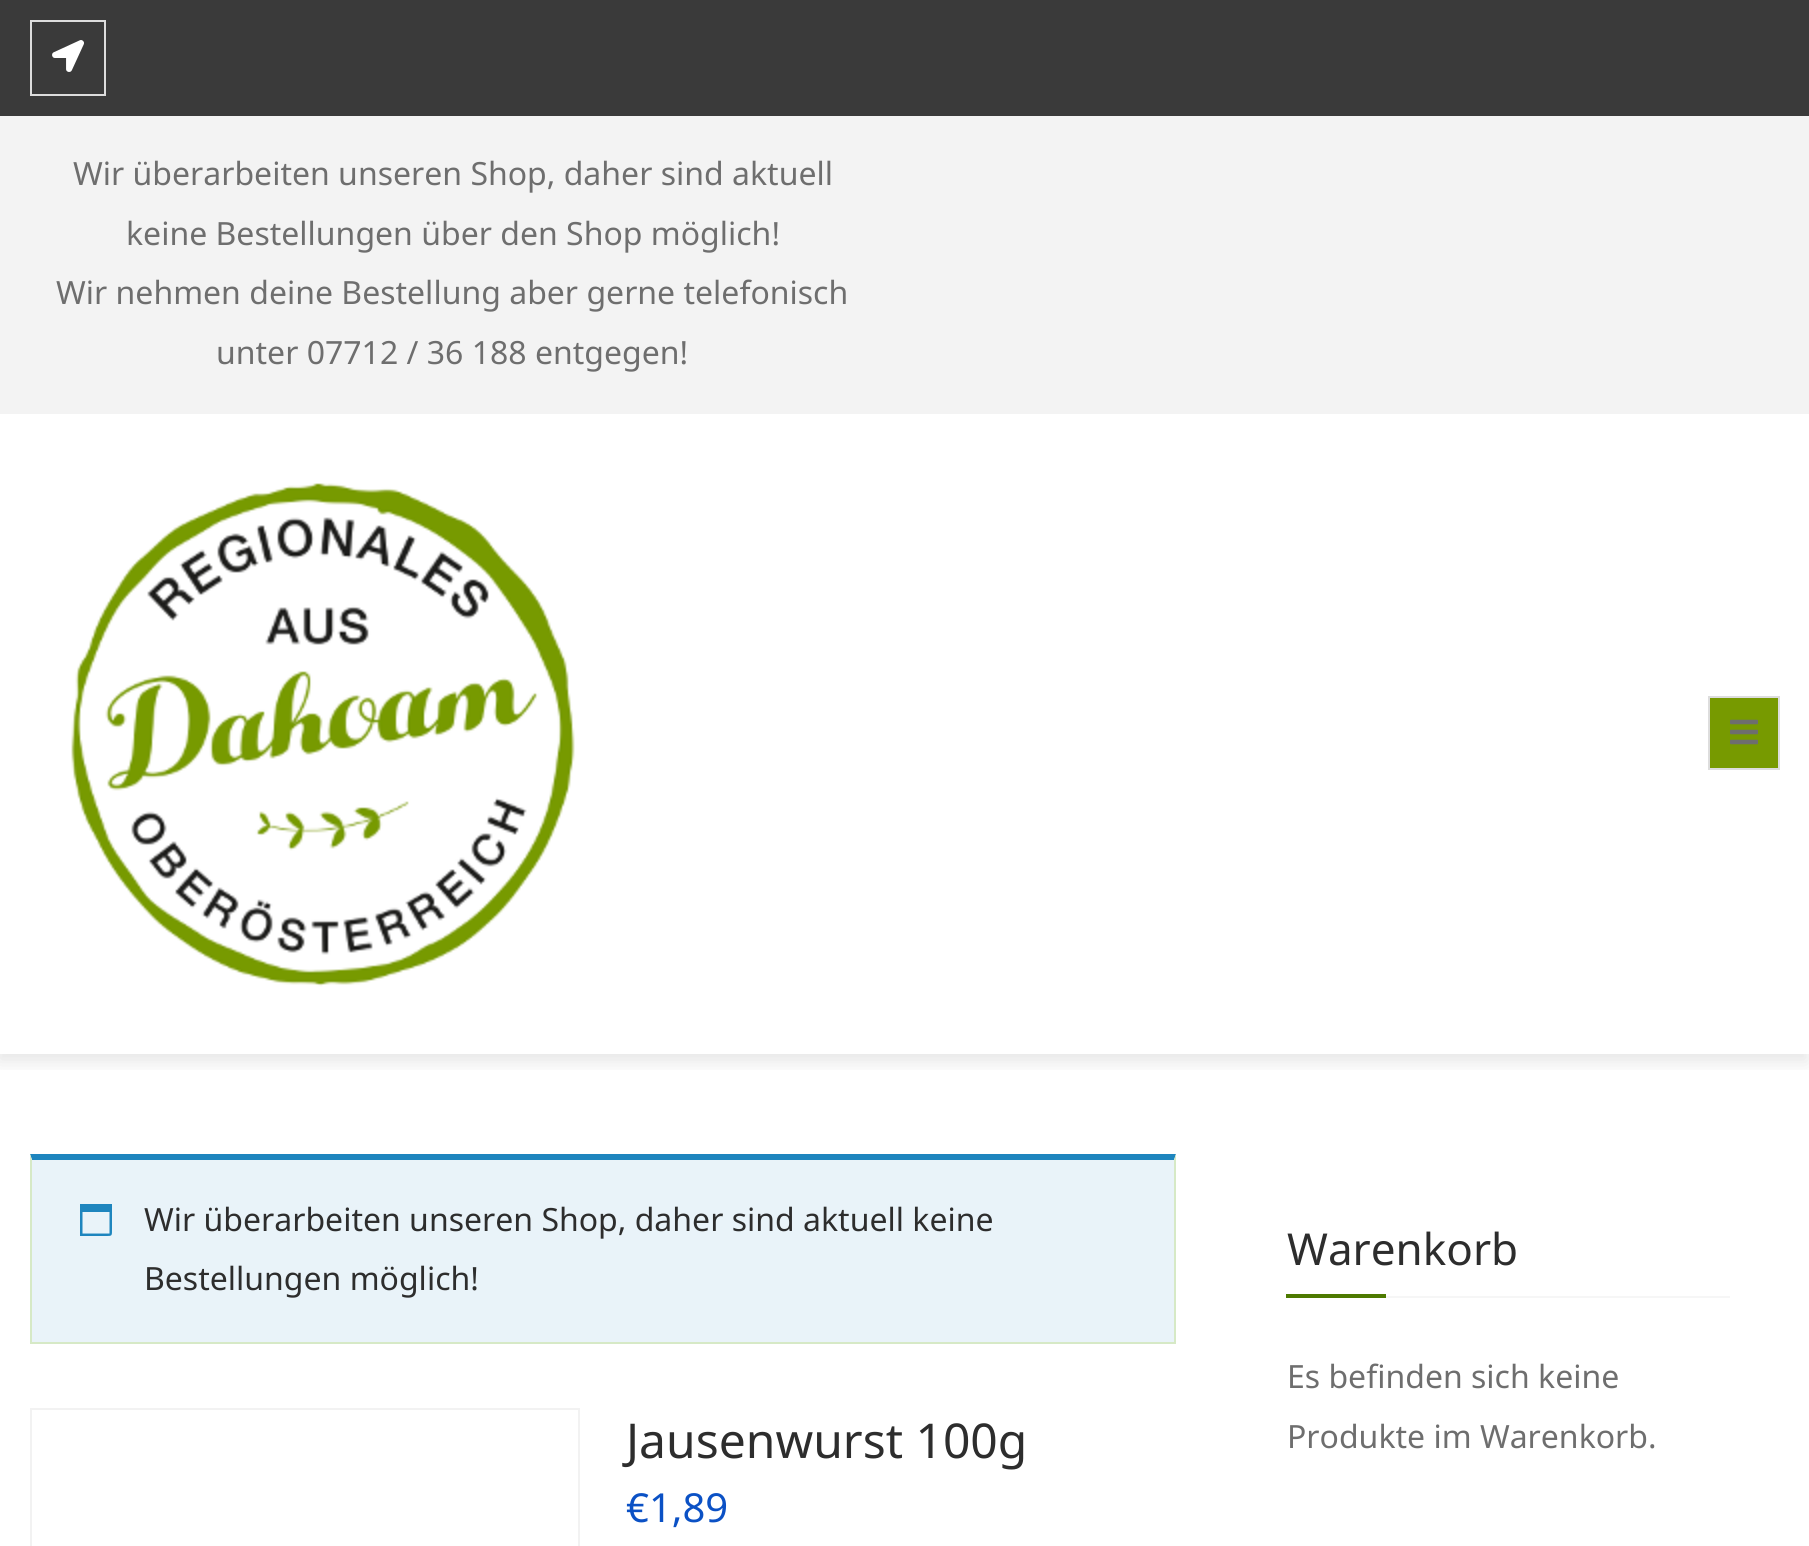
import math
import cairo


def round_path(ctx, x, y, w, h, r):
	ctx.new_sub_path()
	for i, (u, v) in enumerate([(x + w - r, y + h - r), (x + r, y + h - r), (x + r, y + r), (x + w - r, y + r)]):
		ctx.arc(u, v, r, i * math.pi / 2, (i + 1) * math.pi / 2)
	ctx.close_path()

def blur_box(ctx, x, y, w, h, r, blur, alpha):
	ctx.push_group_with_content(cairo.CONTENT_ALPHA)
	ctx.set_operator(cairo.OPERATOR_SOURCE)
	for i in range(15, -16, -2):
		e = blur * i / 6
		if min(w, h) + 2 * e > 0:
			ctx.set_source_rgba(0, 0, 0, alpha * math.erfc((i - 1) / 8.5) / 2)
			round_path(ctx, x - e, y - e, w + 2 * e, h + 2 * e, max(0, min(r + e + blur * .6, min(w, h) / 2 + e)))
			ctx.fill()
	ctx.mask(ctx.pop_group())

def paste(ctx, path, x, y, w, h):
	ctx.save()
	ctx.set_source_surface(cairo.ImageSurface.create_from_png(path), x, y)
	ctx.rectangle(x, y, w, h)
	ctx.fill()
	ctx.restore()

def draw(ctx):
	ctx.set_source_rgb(1, 1, 1)
	ctx.paint()
	ctx.set_source_rgb(0.227, 0.227, 0.227)
	ctx.rectangle(0, 0, 1809, 116)
	ctx.fill()
	ctx.rectangle(31, 21, 74, 74)
	ctx.set_source_rgb(0.867, 0.867, 0.867)
	ctx.stroke()
	paste(ctx, 'media/1.png', 52, 40, 32, 32)
	ctx.set_source_rgb(0.953, 0.953, 0.953)
	ctx.rectangle(0, 116, 1809, 298)
	ctx.fill()
	ctx.select_font_face('Noto Sans')
	ctx.set_font_size(32)
	ctx.set_source_rgb(0.431, 0.431, 0.431)
	for x, y, s in [
		(73, 185, 'Wir überarbeiten unseren Shop, daher sind aktuell'),
		(126, 245, 'keine Bestellungen über den Shop möglich!'),
		(56, 304, 'Wir nehmen deine Bestellung aber gerne telefonisch'),
		(216, 364, 'unter 07712 / 36 188 entgegen!'),
	]:
		ctx.move_to(x, y)
		ctx.show_text(s)
	ctx.save()
	ctx.rectangle(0, 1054, 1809, 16)
	ctx.clip()
	ctx.set_source_rgb(0, 0, 0)
	blur_box(ctx, -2, 422, 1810, 640, 0, 9, 0.1)
	ctx.restore()
	paste(ctx, 'media/2.png', 71, 483, 504, 504)
	ctx.set_source_rgb(0.467, 0.604, 0)
	ctx.rectangle(1709, 697, 70, 72)
	ctx.fill_preserve()
	ctx.set_source_rgb(0.867, 0.867, 0.867)
	ctx.stroke()
	paste(ctx, 'media/3.png', 1730, 719, 28, 26)
	ctx.set_source_rgb(0.914, 0.953, 0.976)
	ctx.rectangle(32, 1160, 1142, 182)
	ctx.fill()
	ctx.set_source_rgb(0.118, 0.522, 0.745)
	ctx.new_path()
	ctx.move_to(30, 1154)
	ctx.line_to(1176, 1154)
	ctx.line_to(1174, 1160)
	ctx.line_to(32, 1160)
	ctx.close_path()
	ctx.fill()
	ctx.set_source_rgb(0.839, 0.914, 0.776)
	ctx.new_path()
	ctx.move_to(1176, 1154)
	ctx.line_to(1176, 1344)
	ctx.line_to(1174, 1342)
	ctx.line_to(1174, 1160)
	ctx.close_path()
	ctx.fill()
	ctx.rectangle(30, 1342, 1146, 2)
	ctx.fill()
	ctx.new_path()
	ctx.move_to(30, 1344)
	ctx.line_to(30, 1154)
	ctx.line_to(32, 1160)
	ctx.line_to(32, 1342)
	ctx.close_path()
	ctx.fill()
	ctx.set_source_rgb(0.118, 0.522, 0.745)
	ctx.new_path()
	ctx.move_to(109.5, 1212)
	ctx.line_to(82.5, 1212)
	ctx.line_to(82.5, 1233.5)
	ctx.line_to(109.5, 1233.5)
	ctx.close_path()
	ctx.move_to(112, 1204)
	ctx.line_to(112, 1228.5)
	ctx.curve_to(112, 1236.5, 112.5, 1236, 104.5, 1236)
	ctx.line_to(80, 1236)
	ctx.line_to(80, 1204)
	ctx.close_path()
	ctx.fill()
	ctx.set_source_rgb(0.176, 0.176, 0.176)
	ctx.move_to(144, 1231)
	ctx.show_text('Wir überarbeiten unseren Shop, daher sind aktuell keine')
	ctx.move_to(144, 1290)
	ctx.show_text('Bestellungen möglich!')
	ctx.rectangle(31, 1409, 548, 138)
	ctx.set_source_rgb(0.949, 0.949, 0.949)
	ctx.stroke()
	ctx.set_font_size(48)
	ctx.set_source_rgb(0.176, 0.176, 0.176)
	ctx.move_to(626, 1458)
	ctx.show_text('Jausenwurst 100g')
	ctx.set_font_size(40)
	ctx.set_source_rgb(0.043, 0.318, 0.773)
	ctx.move_to(626, 1522)
	ctx.show_text('€1,89')
	ctx.set_source_rgb(0.961, 0.961, 0.961)
	ctx.rectangle(1386, 1296, 344, 2)
	ctx.fill()
	ctx.set_font_size(44)
	ctx.set_source_rgb(0.176, 0.176, 0.176)
	ctx.move_to(1287, 1265)
	ctx.show_text('Warenkorb')
	ctx.set_source_rgb(0.302, 0.478, 0)
	ctx.rectangle(1286, 1294, 100, 4)
	ctx.fill()
	ctx.set_font_size(32)
	ctx.set_source_rgb(0.431, 0.431, 0.431)
	ctx.move_to(1287, 1388)
	ctx.show_text('Es befinden sich keine')
	ctx.move_to(1287, 1448)
	ctx.show_text('Produkte im Warenkorb.')


surface = cairo.ImageSurface(cairo.FORMAT_RGB24, 1809, 1546)
ctx = cairo.Context(surface)
options = cairo.FontOptions()
options.set_hint_metrics(cairo.HINT_METRICS_OFF)
options.set_hint_style(cairo.HINT_STYLE_NONE)
ctx.set_font_options(options)
ctx.set_miter_limit(4)
draw(ctx)
surface.write_to_png('image.png')
